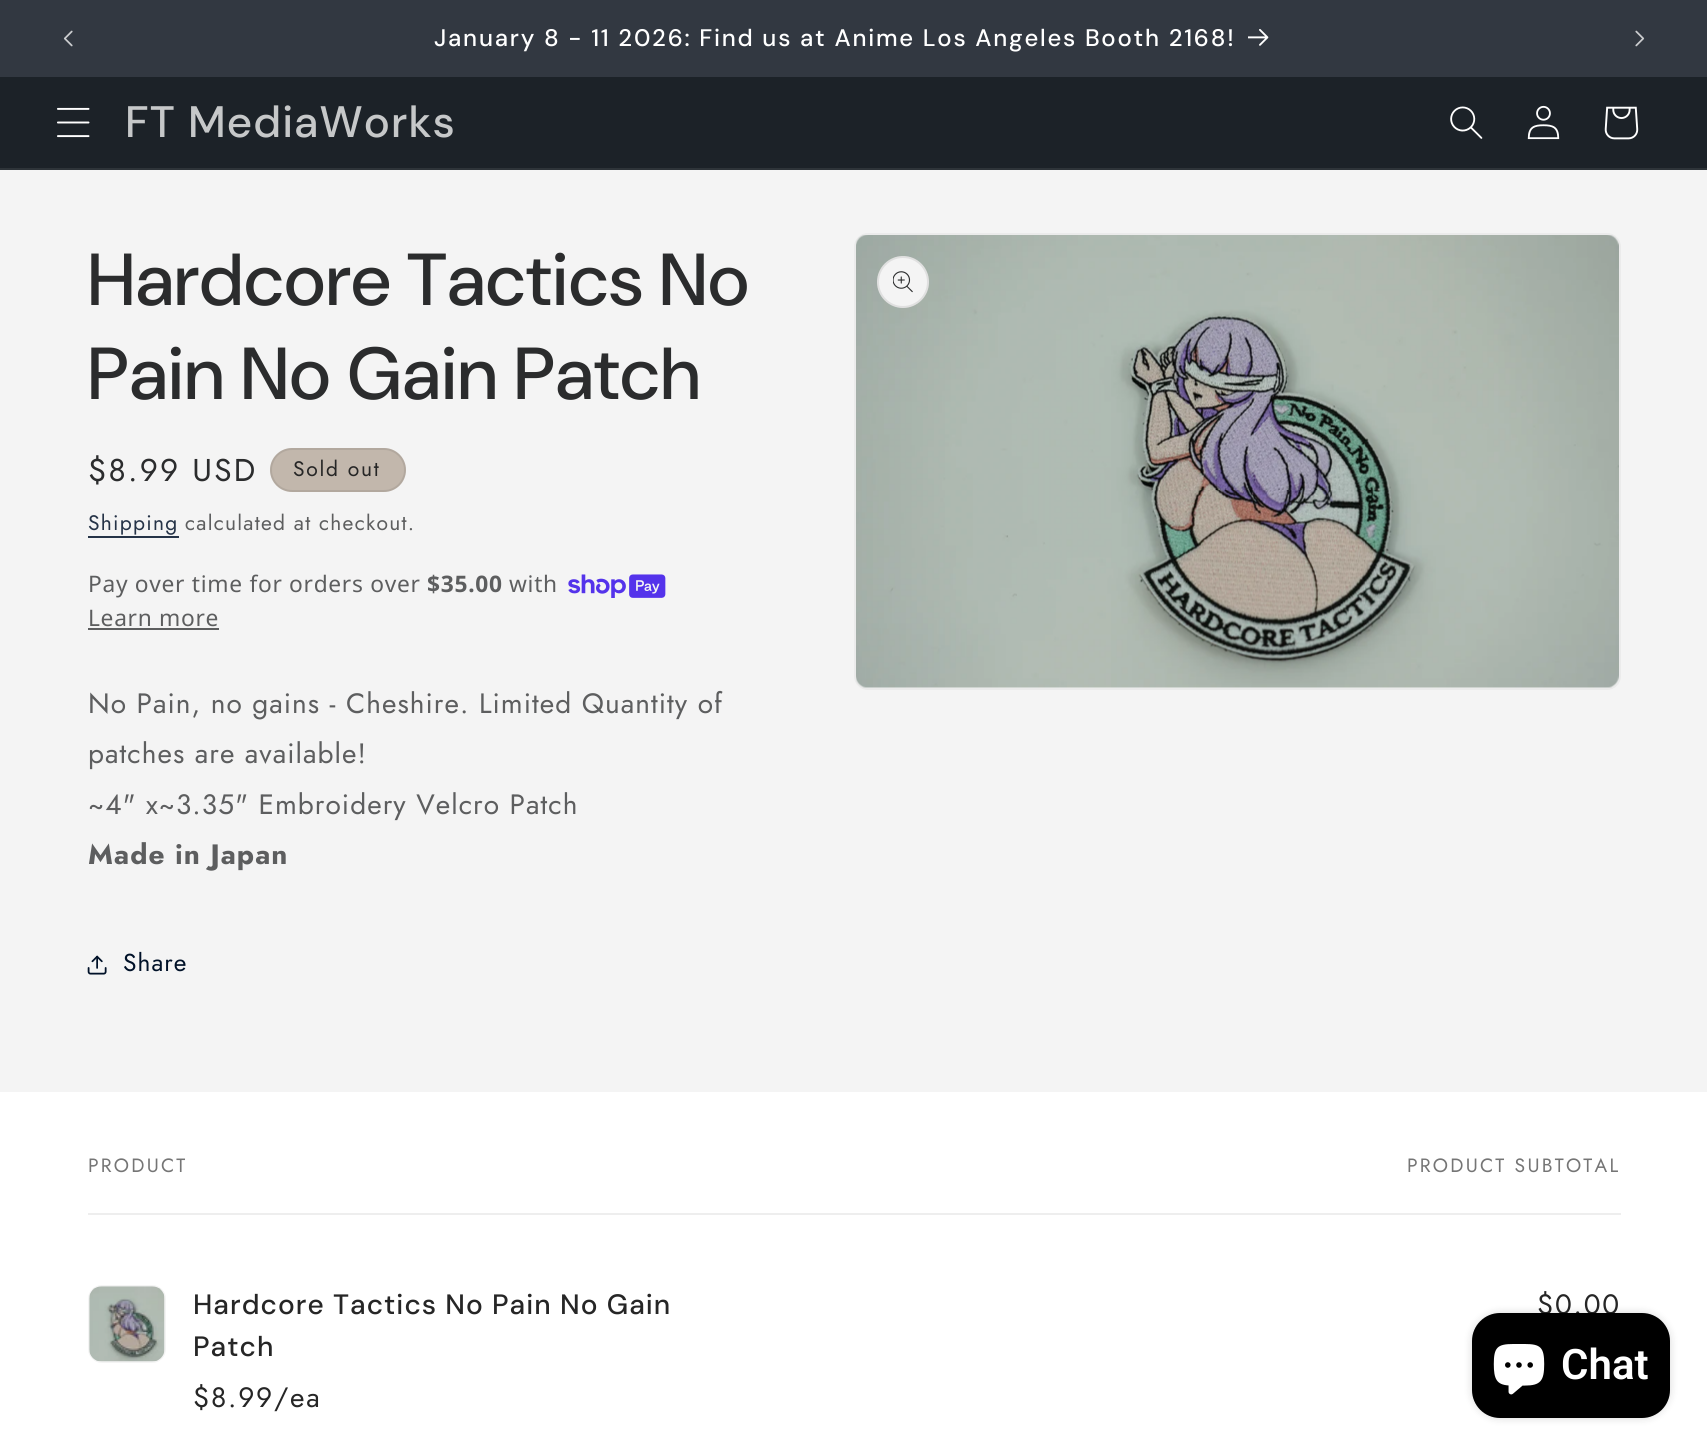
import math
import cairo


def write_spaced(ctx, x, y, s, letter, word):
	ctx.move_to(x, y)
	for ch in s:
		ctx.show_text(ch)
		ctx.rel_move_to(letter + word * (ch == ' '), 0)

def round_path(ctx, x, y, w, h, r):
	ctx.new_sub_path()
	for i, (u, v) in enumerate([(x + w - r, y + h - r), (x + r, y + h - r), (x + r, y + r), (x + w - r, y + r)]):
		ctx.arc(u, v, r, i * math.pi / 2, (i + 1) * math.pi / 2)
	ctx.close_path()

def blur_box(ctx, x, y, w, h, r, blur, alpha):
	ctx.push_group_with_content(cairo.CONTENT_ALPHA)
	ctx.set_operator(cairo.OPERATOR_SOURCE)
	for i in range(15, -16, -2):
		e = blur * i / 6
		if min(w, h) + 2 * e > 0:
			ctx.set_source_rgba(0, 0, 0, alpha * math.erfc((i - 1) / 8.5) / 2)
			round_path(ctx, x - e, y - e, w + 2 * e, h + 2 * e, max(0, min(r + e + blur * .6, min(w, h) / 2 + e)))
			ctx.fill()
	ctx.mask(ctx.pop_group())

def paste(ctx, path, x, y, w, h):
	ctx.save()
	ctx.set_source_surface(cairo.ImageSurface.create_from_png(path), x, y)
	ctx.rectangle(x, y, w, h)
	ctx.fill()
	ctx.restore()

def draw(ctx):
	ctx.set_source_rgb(0.957, 0.957, 0.957)
	ctx.paint()
	ctx.set_source_rgb(0.196, 0.22, 0.255)
	ctx.rectangle(0, 0, 1707, 77)
	ctx.fill()
	paste(ctx, 'media/1.png', 63, 30, 10, 17)
	ctx.select_font_face('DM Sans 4 Medium')
	ctx.set_font_size(23.9)
	ctx.set_source_rgb(1, 1, 1)
	write_spaced(ctx, 434, 46, 'January 8 - 11 2026: Find us at Anime Los Angeles Booth 2168!', 1.75, 0)
	paste(ctx, 'media/2.png', 1248, 29, 21, 17)
	paste(ctx, 'media/3.png', 1635, 30, 10, 17)
	ctx.set_source_rgb(0.11, 0.133, 0.157)
	ctx.rectangle(0, 77, 1707, 91)
	ctx.fill()
	ctx.set_source_rgb(0.18, 0.204, 0.224)
	ctx.rectangle(0, 168, 1707, 2)
	ctx.fill()
	paste(ctx, 'media/4.png', 57, 107, 33, 31)
	ctx.select_font_face('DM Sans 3 Medium')
	ctx.set_font_size(44)
	ctx.set_source_rgb(0.776, 0.784, 0.788)
	write_spaced(ctx, 125, 137, 'FT MediaWorks', 1.1, 0)
	paste(ctx, 'media/5.png', 1450, 106, 33, 33)
	paste(ctx, 'media/6.png', 1527, 105, 33, 35)
	paste(ctx, 'media/7.png', 1604, 106, 35, 34)
	ctx.select_font_face('DM Sans Medium')
	ctx.set_font_size(73.5)
	ctx.set_source_rgb(0.169, 0.173, 0.176)
	write_spaced(ctx, 88, 305, 'Hardcore Tactics No', 1.1, 0)
	write_spaced(ctx, 88, 399, 'Pain No Gain Patch', 1.1, 0)
	ctx.select_font_face('Jost')
	ctx.set_font_size(31.5)
	write_spaced(ctx, 88, 481, '$8.99 USD', 2.25, 0)
	ctx.set_source_rgb(0.761, 0.718, 0.675)
	round_path(ctx, 270, 448, 136, 44, 22)
	ctx.fill()
	round_path(ctx, 271, 449, 134, 42, 21)
	ctx.set_source_rgba(0.149, 0.149, 0.149, 0.1)
	ctx.stroke()
	ctx.set_font_size(21)
	ctx.set_source_rgb(0.149, 0.149, 0.149)
	write_spaced(ctx, 293, 476, 'Sold out', 1.75, 0)
	ctx.set_source_rgb(0.145, 0.2, 0.278)
	write_spaced(ctx, 88, 530, 'Shipping', 1.25, 0)
	ctx.rectangle(88, 536, 91, 2)
	ctx.fill()
	ctx.set_source_rgb(0.365, 0.369, 0.373)
	write_spaced(ctx, 185, 530, 'calculated at checkout.', 1.25, 0)
	ctx.select_font_face('Noto Sans')
	ctx.set_font_size(22.75)
	write_spaced(ctx, 88, 592, 'Pay over time for orders over', 0.7, 0)
	ctx.select_font_face('Noto Sans', cairo.FONT_SLANT_NORMAL, cairo.FONT_WEIGHT_BOLD)
	write_spaced(ctx, 427, 592, '$35.00', 0.7, 0)
	ctx.select_font_face('Noto Sans')
	write_spaced(ctx, 509, 592, 'with', 0.7, 0)
	paste(ctx, 'media/8.png', 568, 574, 98, 24)
	write_spaced(ctx, 88, 626, 'Learn more', 0.7, 0)
	ctx.rectangle(88, 628, 131, 2)
	ctx.fill()
	ctx.select_font_face('Jost')
	ctx.set_font_size(28)
	for x, y, s in [
		(88, 713, 'No Pain, no gains - Cheshire. Limited Quantity of'),
		(88, 763, 'patches are available!'),
		(88, 814, '~4" x~3.35" Embroidery Velcro Patch'),
	]:
		write_spaced(ctx, x, y, s, 1.05, 0)
	ctx.select_font_face('Jost', cairo.FONT_SLANT_NORMAL, cairo.FONT_WEIGHT_BOLD)
	write_spaced(ctx, 88, 864, 'Made in Japan', 1.05, 0)
	paste(ctx, 'media/9.png', 87, 955, 20, 20)
	ctx.select_font_face('Jost')
	ctx.set_font_size(24.5)
	ctx.set_source_rgb(0, 0.067, 0.157)
	write_spaced(ctx, 123, 971, 'Share', 1.05, 0)
	round_path(ctx, 855, 234, 765, 455, 13)
	ctx.set_source_rgb(0.918, 0.918, 0.918)
	ctx.stroke()
	paste(ctx, 'media/10.png', 856, 235, 763, 453)
	ctx.set_source_rgb(0.957, 0.957, 0.957)
	ctx.arc(903, 282, 26, 0, 2 * math.pi)
	ctx.fill()
	ctx.arc(903, 282, 25, 0, 2 * math.pi)
	ctx.set_source_rgba(0.169, 0.173, 0.176, 0.1)
	ctx.stroke()
	paste(ctx, 'media/11.png', 893, 271, 20, 22)
	ctx.set_source_rgb(1, 1, 1)
	ctx.rectangle(0, 1092, 1707, 362)
	ctx.fill()
	ctx.set_source_rgb(0.933, 0.933, 0.933)
	ctx.rectangle(88, 1213, 1533, 2)
	ctx.fill()
	ctx.set_font_size(19.25)
	ctx.set_source_rgb(0.459, 0.459, 0.459)
	write_spaced(ctx, 88, 1172, 'PRODUCT', 2.25, 0)
	write_spaced(ctx, 1407, 1172, 'PRODUCT SUBTOTAL', 2.25, 0)
	round_path(ctx, 89, 1286, 76, 76, 13)
	ctx.set_source_rgb(0.957, 0.957, 0.957)
	ctx.stroke()
	paste(ctx, 'media/12.png', 89, 1286, 76, 76)
	ctx.select_font_face('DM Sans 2 Medium')
	ctx.set_font_size(28)
	ctx.set_source_rgb(0.149, 0.149, 0.149)
	write_spaced(ctx, 193, 1314, 'Hardcore Tactics No Pain No Gain', 1.05, 0)
	write_spaced(ctx, 193, 1356, 'Patch', 1.05, 0)
	ctx.select_font_face('Jost')
	write_spaced(ctx, 193, 1407, '$8.99/ea', 1.75, 0)
	write_spaced(ctx, 1537, 1314, '$0.00', 1.75, 0)
	ctx.set_source_rgb(0, 0, 0)
	blur_box(ctx, 1472, 1313, 198, 105, 28, 4.5, 0.15)
	ctx.set_source_rgb(0, 0, 0)
	round_path(ctx, 1472, 1313, 198, 105, 28)
	ctx.fill()
	paste(ctx, 'media/13.png', 1493, 1344, 52, 51)
	ctx.select_font_face('Roboto SemiBold')
	ctx.set_font_size(42)
	ctx.set_source_rgb(1, 1, 1)
	ctx.move_to(1561, 1379)
	ctx.show_text('Chat')


surface = cairo.ImageSurface(cairo.FORMAT_RGB24, 1707, 1454)
ctx = cairo.Context(surface)
options = cairo.FontOptions()
options.set_hint_metrics(cairo.HINT_METRICS_OFF)
options.set_hint_style(cairo.HINT_STYLE_NONE)
ctx.set_font_options(options)
ctx.set_miter_limit(4)
draw(ctx)
surface.write_to_png('image.png')
